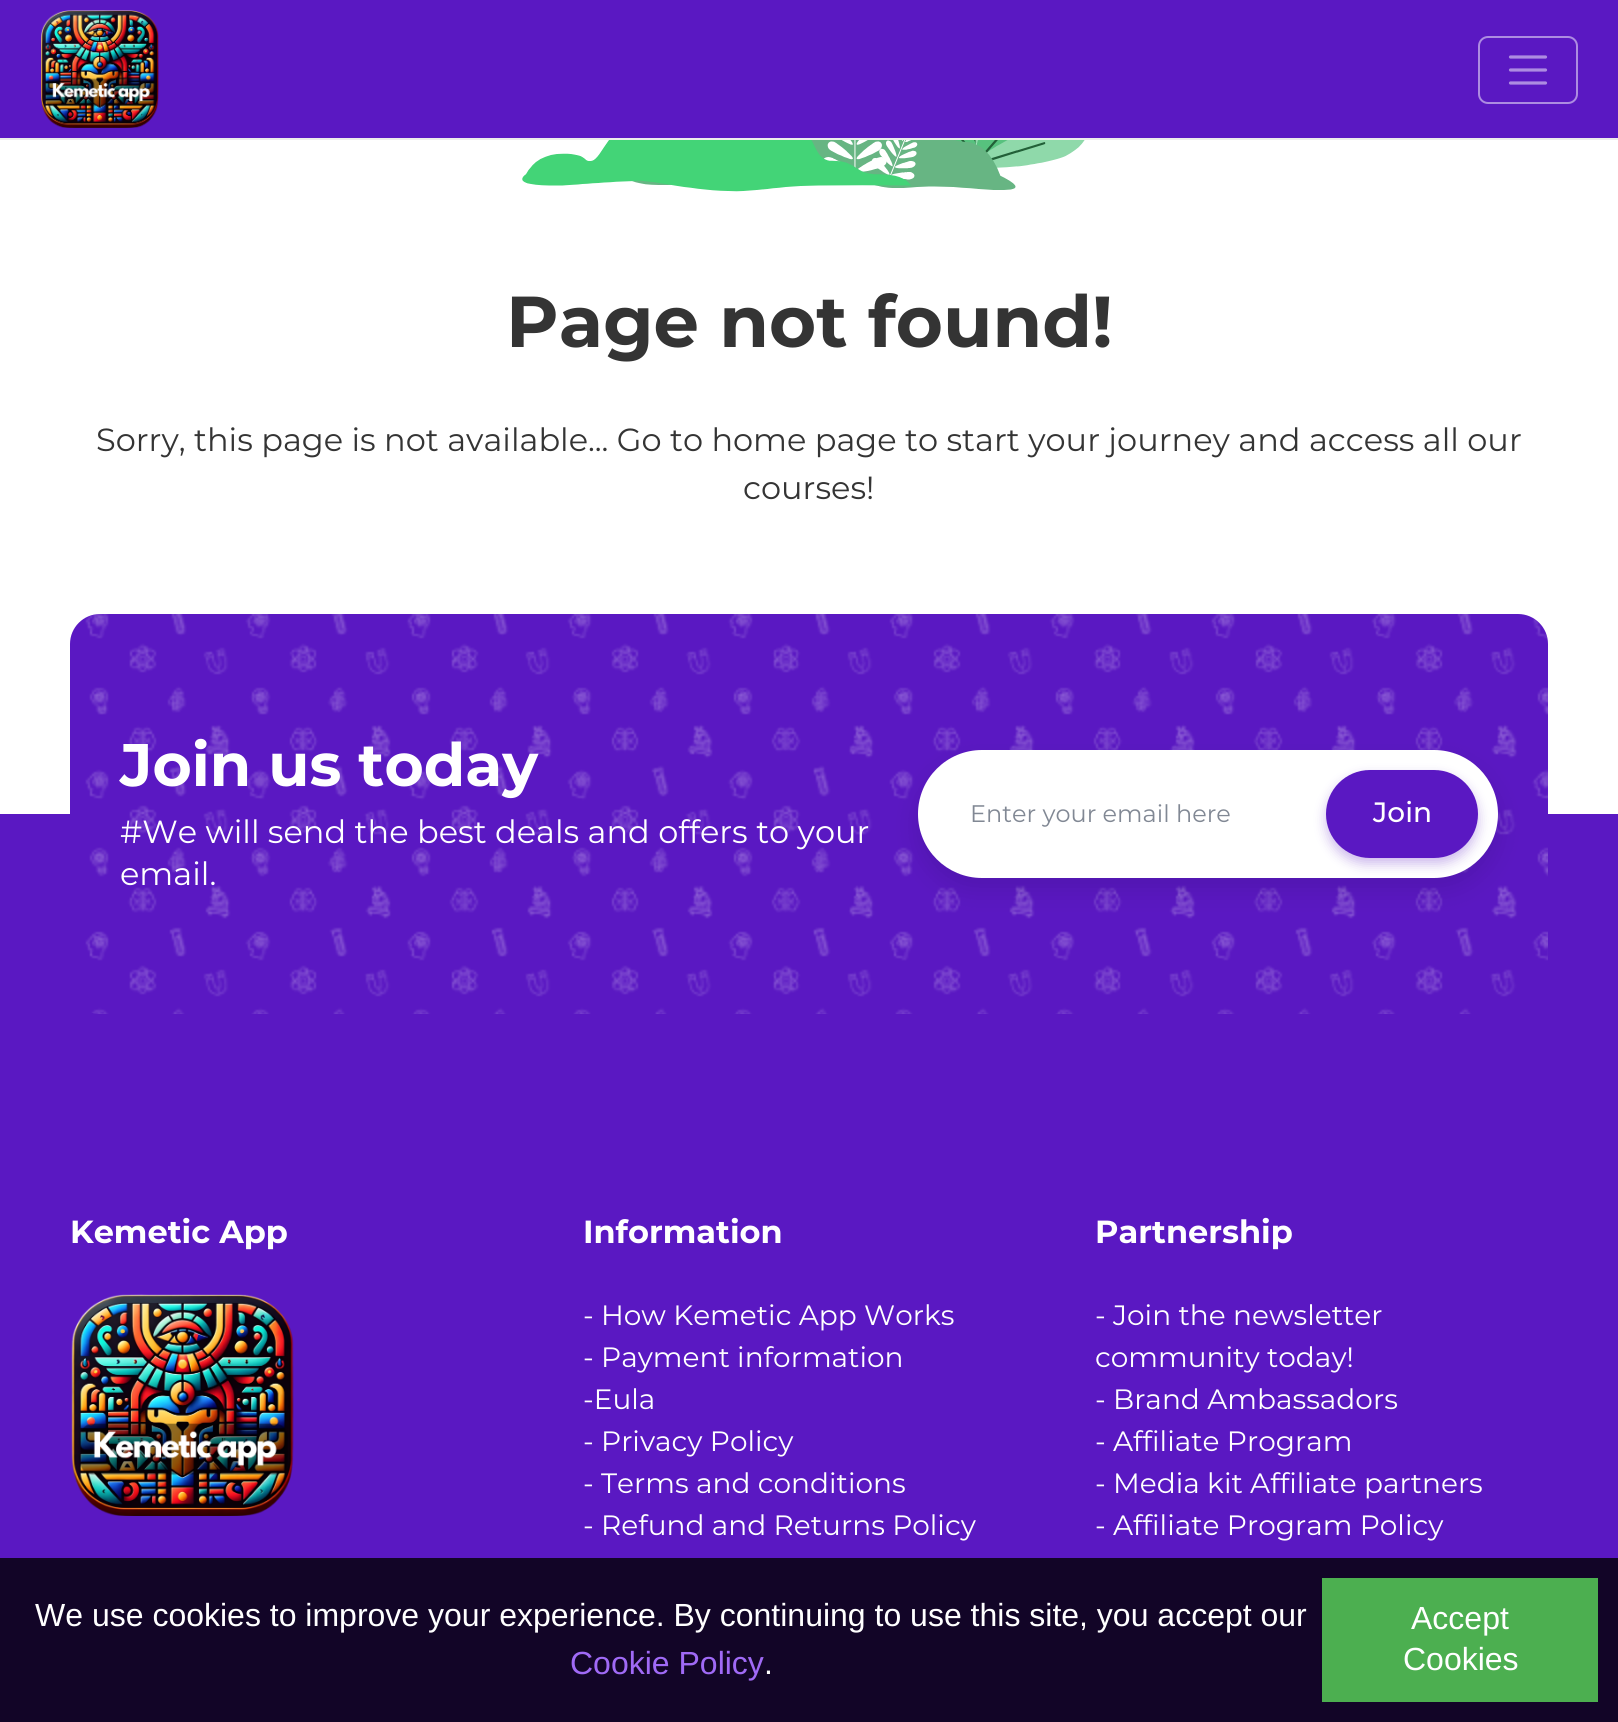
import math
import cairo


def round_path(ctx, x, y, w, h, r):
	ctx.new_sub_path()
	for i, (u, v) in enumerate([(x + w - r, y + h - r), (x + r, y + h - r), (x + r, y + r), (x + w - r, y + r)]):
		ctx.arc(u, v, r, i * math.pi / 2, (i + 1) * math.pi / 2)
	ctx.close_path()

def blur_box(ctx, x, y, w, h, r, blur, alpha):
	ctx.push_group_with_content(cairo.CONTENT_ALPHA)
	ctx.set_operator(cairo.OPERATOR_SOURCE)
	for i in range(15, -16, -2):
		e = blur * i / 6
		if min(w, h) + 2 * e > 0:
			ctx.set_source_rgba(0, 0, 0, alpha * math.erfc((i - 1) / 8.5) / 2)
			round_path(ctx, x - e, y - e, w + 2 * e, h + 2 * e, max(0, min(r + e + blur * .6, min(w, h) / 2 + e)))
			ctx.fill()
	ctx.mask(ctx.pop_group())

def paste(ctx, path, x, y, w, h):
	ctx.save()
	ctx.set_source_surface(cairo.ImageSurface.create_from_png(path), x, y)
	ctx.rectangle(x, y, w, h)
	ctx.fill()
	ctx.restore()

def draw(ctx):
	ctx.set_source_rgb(1, 1, 1)
	ctx.paint()
	ctx.set_source_rgb(0.353, 0.094, 0.761)
	ctx.rectangle(0, 0, 1618, 138)
	ctx.fill()
	ctx.set_source_rgb(0.925, 0.925, 0.925)
	ctx.rectangle(0, 138, 1618, 2)
	ctx.fill()
	paste(ctx, 'media/1.png', 41, 10, 118, 118)
	round_path(ctx, 1479, 37, 98, 66, 9)
	ctx.set_source_rgb(0.678, 0.549, 0.882)
	ctx.stroke()
	ctx.new_path()
	ctx.move_to(1510.5, 57)
	ctx.line_to(1545.5, 57)
	ctx.move_to(1510.5, 70)
	ctx.line_to(1545.5, 70)
	ctx.move_to(1510.5, 83)
	ctx.line_to(1545.5, 83)
	ctx.set_line_width(3.2)
	ctx.set_line_cap(cairo.LINE_CAP_ROUND)
	ctx.stroke()
	paste(ctx, 'media/2.png', 522, 140, 566, 52)
	ctx.select_font_face('Montserrat', cairo.FONT_SLANT_NORMAL, cairo.FONT_WEIGHT_BOLD)
	ctx.set_font_size(72)
	ctx.set_source_rgb(0.204, 0.204, 0.204)
	ctx.move_to(506, 347)
	ctx.show_text('Page not found!')
	ctx.select_font_face('Montserrat')
	ctx.set_font_size(32)
	ctx.move_to(96, 451)
	ctx.show_text('Sorry, this page is not available... Go to home page to start your journey and access all our')
	ctx.move_to(743, 499)
	ctx.show_text('courses!')
	ctx.set_source_rgb(0.353, 0.094, 0.761)
	ctx.rectangle(0, 814, 1618, 908)
	ctx.fill()
	round_path(ctx, 70, 614, 1478, 400, 30)
	ctx.fill()
	paste(ctx, 'media/3.png', 85, 614, 1463, 400)
	ctx.select_font_face('Montserrat', cairo.FONT_SLANT_NORMAL, cairo.FONT_WEIGHT_BOLD)
	ctx.set_font_size(60)
	ctx.set_source_rgb(1, 1, 1)
	ctx.move_to(120, 786)
	ctx.show_text('Join us today')
	ctx.select_font_face('Montserrat')
	ctx.set_font_size(32)
	ctx.move_to(120, 843)
	ctx.show_text('#We will send the best deals and offers to your')
	ctx.move_to(120, 885)
	ctx.show_text('email.')
	ctx.set_source_rgb(0, 0, 0)
	blur_box(ctx, 918, 762, 580, 128, 64, 12, 0.1)
	ctx.set_source_rgb(1, 1, 1)
	round_path(ctx, 918, 750, 580, 128, 64)
	ctx.fill()
	ctx.set_font_size(24)
	ctx.set_source_rgb(0.506, 0.533, 0.58)
	ctx.move_to(970, 822)
	ctx.show_text('Enter your email here')
	ctx.set_source_rgb(0.353, 0.094, 0.761)
	blur_box(ctx, 1326, 776, 152, 88, 44, 6, 0.3)
	ctx.set_source_rgb(0.353, 0.094, 0.761)
	round_path(ctx, 1327, 771, 150, 86, 43)
	ctx.fill_preserve()
	ctx.set_line_width(2)
	ctx.set_line_cap(cairo.LINE_CAP_BUTT)
	ctx.stroke()
	ctx.select_font_face('Montserrat Medium')
	ctx.set_font_size(28)
	ctx.set_source_rgb(1, 1, 1)
	ctx.move_to(1373, 822)
	ctx.show_text('Join')
	ctx.select_font_face('Montserrat', cairo.FONT_SLANT_NORMAL, cairo.FONT_WEIGHT_BOLD)
	ctx.set_font_size(32)
	ctx.move_to(70, 1243)
	ctx.show_text('Kemetic App')
	paste(ctx, 'media/4.png', 71, 1294, 223, 222)
	ctx.move_to(583, 1243)
	ctx.show_text('Information')
	ctx.select_font_face('Montserrat')
	ctx.set_font_size(28)
	for x, y, s in [
		(583, 1325, '- How Kemetic App Works'),
		(583, 1367, '- Payment information'),
		(583, 1409, '-Eula'),
		(583, 1451, '- Privacy Policy'),
		(583, 1493, '- Terms and conditions'),
		(583, 1535, '- Refund and Returns Policy'),
	]:
		ctx.move_to(x, y)
		ctx.show_text(s)
	ctx.select_font_face('Montserrat', cairo.FONT_SLANT_NORMAL, cairo.FONT_WEIGHT_BOLD)
	ctx.set_font_size(32)
	ctx.move_to(1095, 1243)
	ctx.show_text('Partnership')
	ctx.select_font_face('Montserrat')
	ctx.set_font_size(28)
	for x, y, s in [
		(1095, 1325, '- Join the newsletter'),
		(1095, 1367, 'community today!'),
		(1095, 1409, '- Brand Ambassadors'),
		(1095, 1451, '- Affiliate Program'),
		(1095, 1493, '- Media kit Affiliate partners'),
		(1095, 1535, '- Affiliate Program Policy'),
	]:
		ctx.move_to(x, y)
		ctx.show_text(s)
	ctx.set_source_rgba(0, 0, 0, 0.8)
	ctx.rectangle(0, 1558, 1618, 164)
	ctx.fill()
	ctx.select_font_face('Liberation Sans')
	ctx.set_font_size(32)
	ctx.set_source_rgb(1, 1, 1)
	ctx.move_to(35, 1626)
	ctx.show_text('We use cookies to improve your experience. By continuing to use this site, you accept our')
	ctx.set_source_rgb(0.627, 0.416, 0.961)
	ctx.move_to(570, 1674)
	ctx.show_text('Cookie Policy')
	ctx.set_source_rgb(1, 1, 1)
	ctx.move_to(764, 1674)
	ctx.show_text('.')
	ctx.set_source_rgb(0.298, 0.686, 0.314)
	ctx.rectangle(1322, 1578, 276, 124)
	ctx.fill()
	ctx.set_source_rgb(1, 1, 1)
	ctx.move_to(1411, 1629)
	ctx.show_text('Accept')
	ctx.move_to(1403, 1670)
	ctx.show_text('Cookies')


surface = cairo.ImageSurface(cairo.FORMAT_RGB24, 1618, 1722)
ctx = cairo.Context(surface)
options = cairo.FontOptions()
options.set_hint_metrics(cairo.HINT_METRICS_OFF)
options.set_hint_style(cairo.HINT_STYLE_NONE)
ctx.set_font_options(options)
ctx.set_miter_limit(4)
draw(ctx)
surface.write_to_png('image.png')
